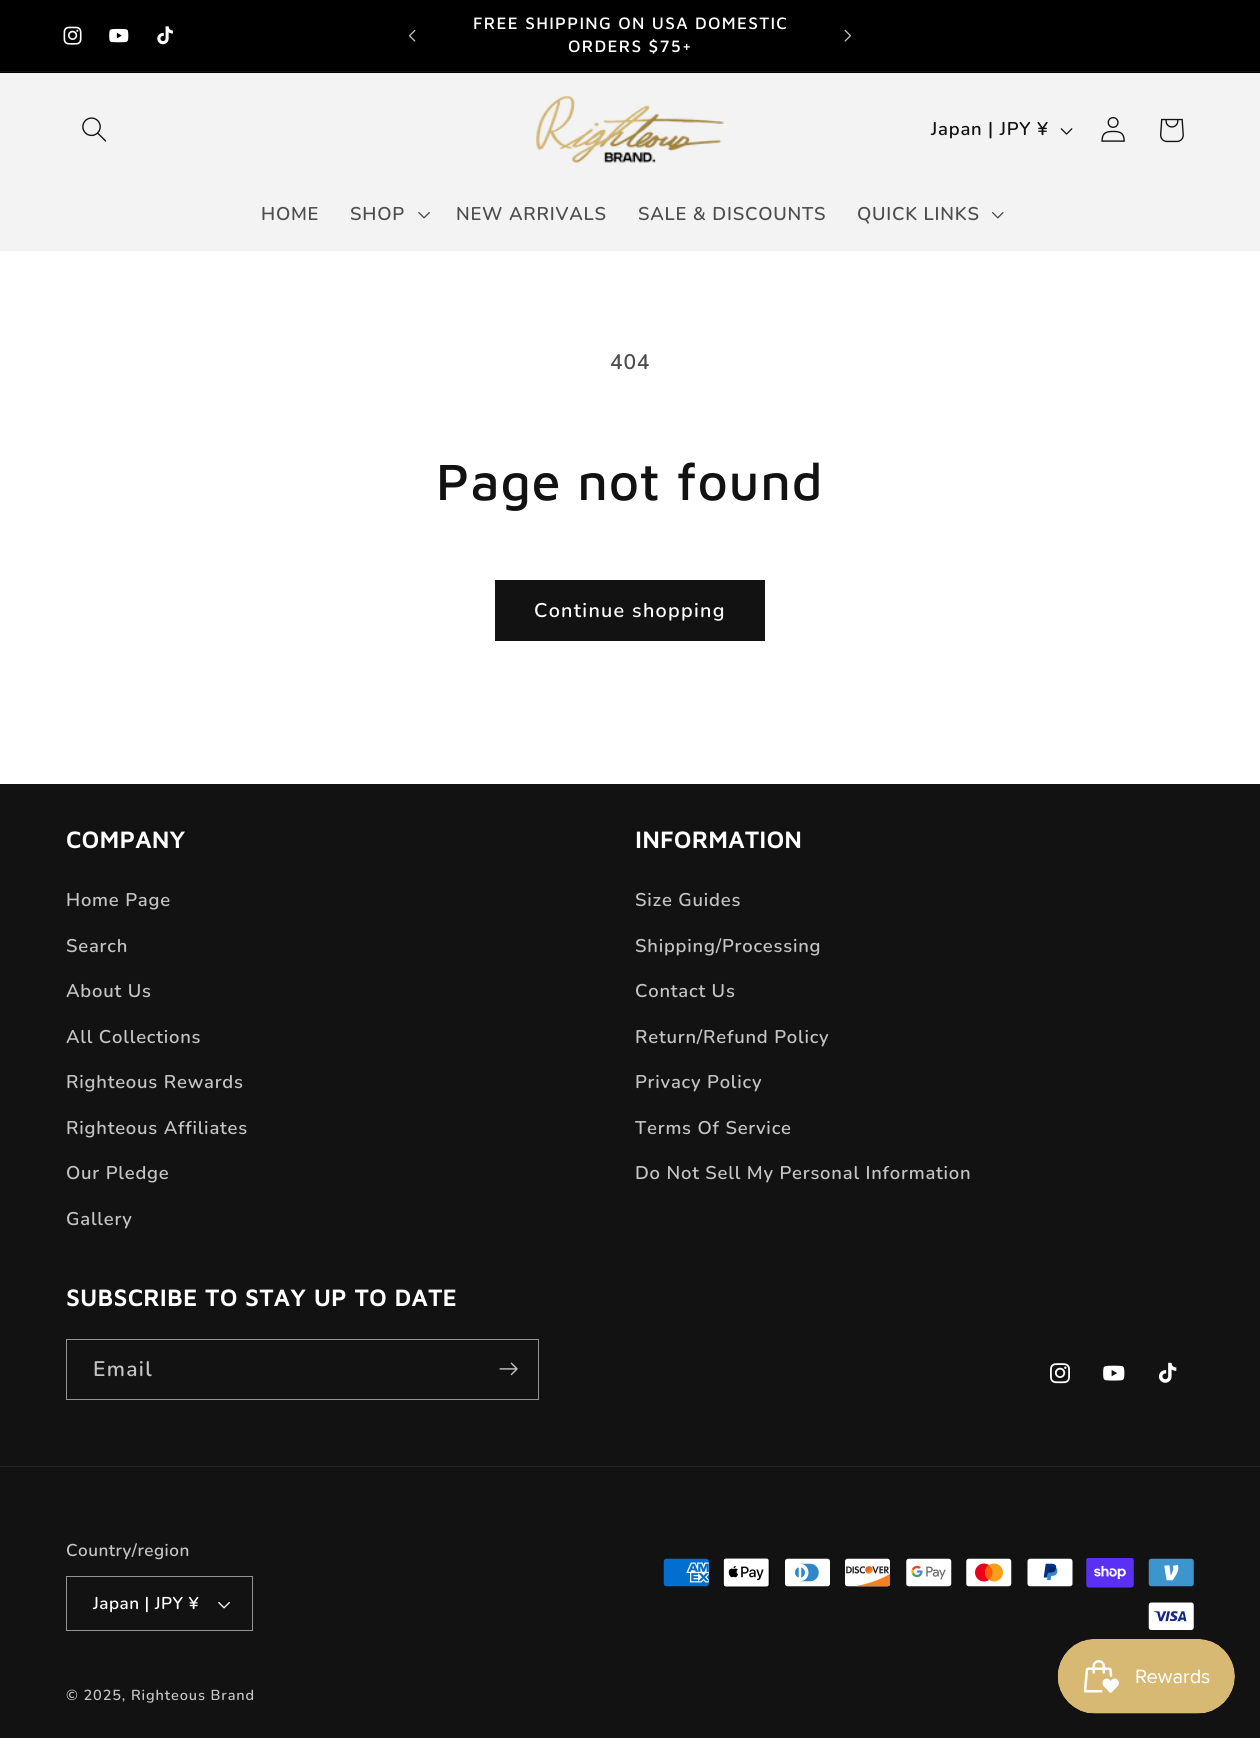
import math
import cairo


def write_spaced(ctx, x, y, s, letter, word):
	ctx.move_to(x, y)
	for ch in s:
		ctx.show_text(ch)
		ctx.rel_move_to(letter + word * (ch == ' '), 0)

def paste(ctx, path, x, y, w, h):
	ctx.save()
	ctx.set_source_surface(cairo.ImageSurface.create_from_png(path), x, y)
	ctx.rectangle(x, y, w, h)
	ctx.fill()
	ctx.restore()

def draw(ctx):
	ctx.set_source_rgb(1, 1, 1)
	ctx.paint()
	ctx.set_source_rgb(0, 0, 0)
	ctx.rectangle(0, 0, 1260, 73)
	ctx.fill()
	ctx.set_source_rgb(0.078, 0.078, 0.078)
	ctx.rectangle(0, 71, 1260, 1)
	ctx.fill()
	paste(ctx, 'media/1.png', 63, 26, 19, 19)
	paste(ctx, 'media/2.png', 109, 28, 20, 15)
	paste(ctx, 'media/3.png', 157, 26, 16, 19)
	paste(ctx, 'media/4.png', 408, 29, 8, 13)
	ctx.select_font_face('Maven Pro Medium')
	ctx.set_font_size(17.1)
	ctx.set_source_rgb(1, 1, 1)
	write_spaced(ctx, 473, 29, 'FREE SHIPPING ON USA DOMESTIC', 1.3, 0)
	write_spaced(ctx, 568, 52, 'ORDERS $75+', 1.3, 0)
	paste(ctx, 'media/5.png', 844, 29, 7, 13)
	ctx.set_source_rgb(0.953, 0.953, 0.953)
	ctx.rectangle(0, 73, 1260, 178)
	ctx.fill()
	paste(ctx, 'media/6.png', 82, 117, 25, 25)
	paste(ctx, 'media/7.png', 536, 96, 188, 67)
	ctx.select_font_face('Nunito SemiBold')
	ctx.set_font_size(18.4)
	ctx.set_source_rgb(0.071, 0.071, 0.071)
	write_spaced(ctx, 931, 135, 'Japan | JPY ¥', 0.8, 0)
	paste(ctx, 'media/8.png', 1060, 128, 13, 7)
	paste(ctx, 'media/9.png', 1101, 116, 24, 26)
	paste(ctx, 'media/10.png', 1160, 118, 24, 25)
	ctx.set_source_rgb(0.302, 0.302, 0.302)
	write_spaced(ctx, 261, 220, 'HOME', 0.8, 0)
	write_spaced(ctx, 350, 220, 'SHOP', 0.8, 0)
	paste(ctx, 'media/11.png', 418, 212, 12, 7)
	for x, y, s in [
		(456, 220, 'NEW ARRIVALS'),
		(638, 220, 'SALE & DISCOUNTS'),
		(857, 220, 'QUICK LINKS'),
	]:
		write_spaced(ctx, x, y, s, 0.8, 0)
	paste(ctx, 'media/12.png', 992, 212, 12, 7)
	ctx.set_font_size(21)
	write_spaced(ctx, 610, 369, '404', 0.8, 0)
	ctx.select_font_face('Maven Pro Medium')
	ctx.set_font_size(52.5)
	ctx.set_source_rgb(0.071, 0.071, 0.071)
	write_spaced(ctx, 436, 500, 'Page not found', 0.8, 0)
	ctx.rectangle(495, 580, 270, 61)
	ctx.fill()
	ctx.select_font_face('Nunito SemiBold')
	ctx.set_font_size(19.75)
	ctx.set_source_rgb(1, 1, 1)
	write_spaced(ctx, 534, 617, 'Continue shopping', 1.3, 0)
	ctx.set_source_rgb(0.071, 0.071, 0.071)
	ctx.rectangle(0, 784, 1260, 954)
	ctx.fill()
	ctx.select_font_face('Maven Pro', cairo.FONT_SLANT_NORMAL, cairo.FONT_WEIGHT_BOLD)
	ctx.set_font_size(23.6)
	ctx.set_source_rgb(1, 1, 1)
	write_spaced(ctx, 66, 848, 'COMPANY', 0.8, 0)
	ctx.select_font_face('Nunito SemiBold')
	ctx.set_font_size(18.4)
	ctx.set_source_rgb(0.769, 0.769, 0.769)
	for x, y, s in [
		(66, 906, 'Home Page'),
		(66, 952, 'Search'),
		(66, 997, 'About Us'),
		(66, 1043, 'All Collections'),
		(66, 1088, 'Righteous Rewards'),
		(66, 1134, 'Righteous Affiliates'),
		(66, 1179, 'Our Pledge'),
		(66, 1225, 'Gallery'),
	]:
		write_spaced(ctx, x, y, s, 0.8, 0)
	ctx.select_font_face('Maven Pro', cairo.FONT_SLANT_NORMAL, cairo.FONT_WEIGHT_BOLD)
	ctx.set_font_size(23.6)
	ctx.set_source_rgb(1, 1, 1)
	write_spaced(ctx, 635, 848, 'INFORMATION', 0.8, 0)
	ctx.select_font_face('Nunito SemiBold')
	ctx.set_font_size(18.4)
	ctx.set_source_rgb(0.769, 0.769, 0.769)
	for x, y, s in [
		(635, 906, 'Size Guides'),
		(635, 952, 'Shipping/Processing'),
		(635, 997, 'Contact Us'),
		(635, 1043, 'Return/Refund Policy'),
		(635, 1088, 'Privacy Policy'),
		(635, 1134, 'Terms Of Service'),
		(635, 1179, 'Do Not Sell My Personal Information'),
	]:
		write_spaced(ctx, x, y, s, 0.8, 0)
	ctx.select_font_face('Maven Pro', cairo.FONT_SLANT_NORMAL, cairo.FONT_WEIGHT_BOLD)
	ctx.set_font_size(23.6)
	ctx.set_source_rgb(1, 1, 1)
	write_spaced(ctx, 66, 1306, 'SUBSCRIBE TO STAY UP TO DATE', 0.8, 0)
	ctx.rectangle(66.5, 1339.5, 472, 60)
	ctx.set_source_rgb(0.58, 0.58, 0.58)
	ctx.set_line_width(1)
	ctx.stroke()
	ctx.select_font_face('Nunito SemiBold')
	ctx.set_font_size(21)
	ctx.set_source_rgb(0.769, 0.769, 0.769)
	write_spaced(ctx, 93, 1376, 'Email', 1.3, 0)
	paste(ctx, 'media/13.png', 499, 1362, 19, 14)
	paste(ctx, 'media/14.png', 1050, 1363, 20, 21)
	paste(ctx, 'media/15.png', 1103, 1365, 22, 16)
	paste(ctx, 'media/16.png', 1158, 1362, 19, 21)
	ctx.set_source_rgb(0.145, 0.145, 0.145)
	ctx.rectangle(0, 1466, 1260, 1)
	ctx.fill()
	ctx.set_font_size(17.1)
	ctx.set_source_rgb(0.769, 0.769, 0.769)
	write_spaced(ctx, 66, 1556, 'Country/region', 0.5, 0)
	paste(ctx, 'media/17.png', 218, 1602, 12, 7)
	ctx.rectangle(66.5, 1576.5, 186, 54)
	ctx.set_source_rgb(0.58, 0.58, 0.58)
	ctx.stroke()
	ctx.set_source_rgb(1, 1, 1)
	write_spaced(ctx, 93, 1609, 'Japan | JPY ¥', 0.5, 0)
	paste(ctx, 'media/18.png', 663, 1558, 46, 29)
	paste(ctx, 'media/19.png', 723, 1558, 47, 30)
	paste(ctx, 'media/20.png', 785, 1558, 45, 29)
	paste(ctx, 'media/21.png', 845, 1558, 45, 29)
	paste(ctx, 'media/22.png', 906, 1558, 46, 29)
	paste(ctx, 'media/23.png', 966, 1558, 46, 29)
	paste(ctx, 'media/24.png', 1027, 1558, 46, 29)
	paste(ctx, 'media/25.png', 1086, 1558, 48, 30)
	paste(ctx, 'media/26.png', 1148, 1558, 46, 29)
	paste(ctx, 'media/27.png', 1148, 1602, 46, 28)
	ctx.set_font_size(14.5)
	ctx.set_source_rgb(0.769, 0.769, 0.769)
	write_spaced(ctx, 66, 1700, '© 2025, Righteous Brand', 0.9, 0)
	paste(ctx, 'media/28.png', 1057, 1639, 178, 75)


surface = cairo.ImageSurface(cairo.FORMAT_RGB24, 1260, 1738)
ctx = cairo.Context(surface)
options = cairo.FontOptions()
options.set_hint_metrics(cairo.HINT_METRICS_OFF)
options.set_hint_style(cairo.HINT_STYLE_NONE)
ctx.set_font_options(options)
ctx.set_miter_limit(4)
draw(ctx)
surface.write_to_png('image.png')
